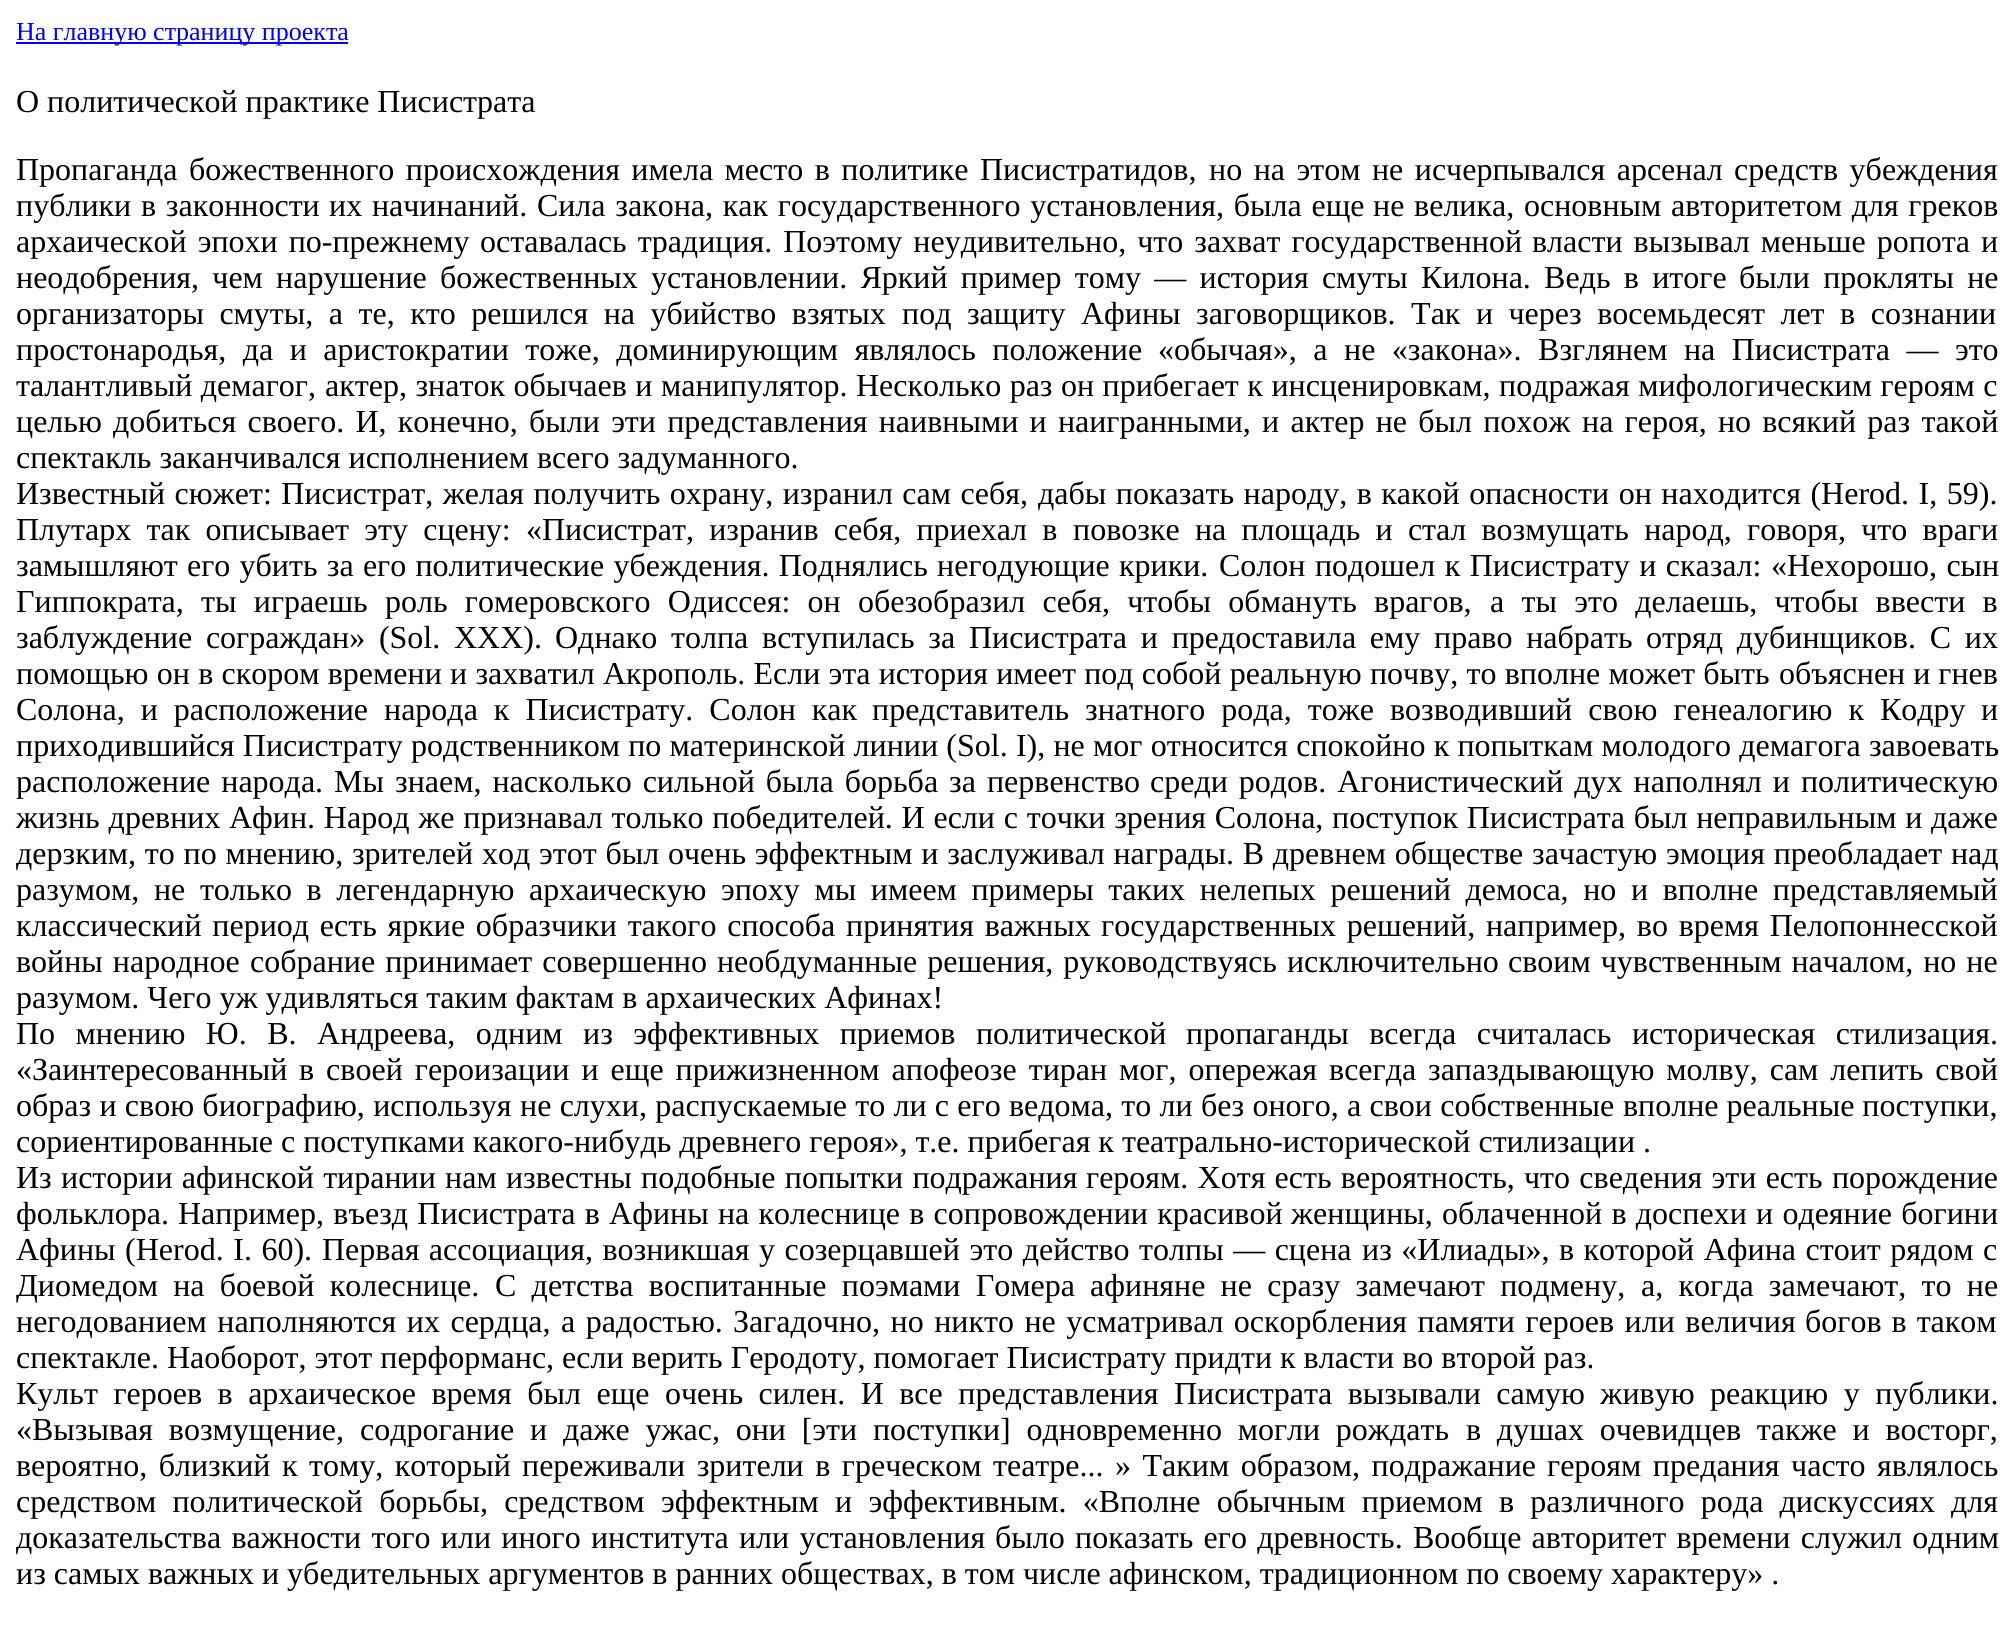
import math
import cairo


def write_spaced(ctx, x, y, s, letter, word):
	ctx.move_to(x, y)
	for ch in s:
		ctx.show_text(ch)
		ctx.rel_move_to(letter + word * (ch == ' '), 0)

def draw(ctx):
	ctx.set_source_rgb(1, 1, 1)
	ctx.paint()
	ctx.set_source_rgb(0, 0, 0.933)
	ctx.rectangle(16, 42, 332, 2)
	ctx.fill()
	ctx.select_font_face('Liberation Serif')
	ctx.set_font_size(26)
	ctx.move_to(16, 40)
	ctx.show_text('На главную страницу проекта')
	ctx.set_font_size(32)
	ctx.set_source_rgb(0, 0, 0)
	ctx.move_to(16, 112)
	ctx.show_text('О политической практике Писистрата')
	write_spaced(ctx, 16, 180, 'Пропаганда божественного происхождения имела место в политике Писистратидов,', 0, 3.5)
	write_spaced(ctx, 1209, 180, 'но на этом не исчерпывался арсенал средств убеждения', 0, 3.5)
	for x, y, s in [
		(16, 216, 'публики в законности'),
		(329, 216, 'их начинаний. Сила закона, как государственного установления, была еще'),
		(1373, 216, 'не велика, основным авторитетом для греков'),
	]:
		write_spaced(ctx, x, y, s, 0, 1.75)
	for x, y, s in [
		(16, 252, 'архаической эпохи по-прежнему'),
		(480, 252, 'оставалась традиция. Поэтому неудивительно, что захват государственной'),
		(1532, 252, 'власти вызывал меньше ропота и'),
	]:
		write_spaced(ctx, x, y, s, 0, 3)
	for x, y, s in [
		(16, 288, 'неодобрения, чем нарушение божественных'),
		(651, 288, 'установлении. Яркий пример тому — история смуты Килона. Ведь в итоге'),
		(1739, 288, 'были прокляты не'),
	]:
		write_spaced(ctx, x, y, s, 0, 5.25)
	write_spaced(ctx, 16, 324, 'организаторы смуты, а те, кто решился на убийство взятых', 0, 7.5)
	write_spaced(ctx, 902, 324, 'под защиту Афины заговорщиков. Так и через восемьдесят лет в сознании', 0, 7.5)
	write_spaced(ctx, 16, 360, 'простонародья, да и аристократии тоже, доминирующим являлось положение', 0, 8.5)
	write_spaced(ctx, 1158, 360, '«обычая», а не «закона». Взглянем на Писистрата — это', 0, 8.5)
	for x, y, s in [
		(16, 396, 'талантливый демагог,'),
		(325, 396, 'актер, знаток обычаев и манипулятор. Несколько раз он прибегает к инсценировкам,'),
		(1499, 396, 'подражая мифологическим героям с'),
	]:
		write_spaced(ctx, x, y, s, 0, 0.5)
	for x, y, s in [
		(16, 432, 'целью добиться своего. И, конечно,'),
		(529, 432, 'были эти представления наивными и наигранными, и актер не был похож'),
		(1582, 432, 'на героя, но всякий раз такой'),
	]:
		write_spaced(ctx, x, y, s, 0, 3.25)
	ctx.move_to(16, 468)
	ctx.show_text('спектакль заканчивался исполнением всего задуманного.')
	write_spaced(ctx, 16, 504, 'Известный сюжет: Писистрат, желая получить охрану, изранил сам себя,', 0, 1.5)
	write_spaced(ctx, 1038, 504, 'дабы показать народу, в какой опасности он находится (Herod. I, 59).', 0, 1.5)
	write_spaced(ctx, 16, 540, 'Плутарх так описывает эту сцену: «Писистрат, изранив себя, приехал в', 0, 7.25)
	write_spaced(ctx, 1073, 540, 'повозке на площадь и стал возмущать народ, говоря, что враги', 0, 7.25)
	ctx.move_to(16, 576)
	ctx.show_text('замышляют')
	write_spaced(ctx, 187, 576, 'его убить за его политические убеждения. Поднялись негодующие крики.', 0, 1.25)
	write_spaced(ctx, 1219, 576, 'Солон подошел к Писистрату и сказал: «Нехорошо, сын', 0, 1.5)
	for x, y, s in [
		(16, 612, 'Гиппократа, ты играешь'),
		(385, 612, 'роль гомеровского Одиссея: он обезобразил себя, чтобы обмануть врагов,'),
		(1490, 612, 'а ты это делаешь, чтобы ввести в'),
	]:
		write_spaced(ctx, x, y, s, 0, 9.25)
	for x, y, s in [
		(16, 648, 'заблуждение сограждан» (Sol. XXX).'),
		(555, 648, 'Однако толпа вступилась за Писистрата и предоставила ему право набрать'),
		(1646, 648, 'отряд дубинщиков. С их'),
	]:
		write_spaced(ctx, x, y, s, 0, 5.75)
	write_spaced(ctx, 16, 684, 'помощью он в скором времени и захватил Акрополь. Если эта история имеет под собой реальную почву, то вполне может быть', 0, 0.25)
	ctx.move_to(1779, 684)
	ctx.show_text('объяснен и гнев')
	write_spaced(ctx, 16, 720, 'Солона, и расположение народа к Писистрату. Солон как', 0, 8)
	write_spaced(ctx, 872, 720, 'представитель знатного рода, тоже возводивший свою генеалогию к Кодру', 0, 8)
	ctx.move_to(1981, 720)
	ctx.show_text('и')
	write_spaced(ctx, 16, 756, 'приходившийся Писистрату родственником по материнской линии (Sol. I), не мог относится спокойно к попыткам молодого демагога завоевать', 0, 0.25)
	write_spaced(ctx, 16, 792, 'расположение народа. Мы знаем, насколько сильной была борьба за первенство', 0, 3)
	write_spaced(ctx, 1150, 792, 'среди родов. Агонистический дух наполнял и политическую', 0, 3)
	write_spaced(ctx, 16, 828, 'жизнь древних', 0, 1)
	for x, y, s in [
		(229, 828, 'Афин. Народ же признавал только победителей. И если с точки зрения Солона,'),
		(1332, 828, 'поступок Писистрата был неправильным и даже'),
		(16, 864, 'дерзким, то по мнению, зрителей'),
		(482, 864, 'ход этот был очень эффектным и заслуживал награды. В древнем обществе'),
		(1532, 864, 'зачастую эмоция преобладает над'),
	]:
		write_spaced(ctx, x, y, s, 0, 0.75)
	write_spaced(ctx, 16, 900, 'разумом, не только в легендарную архаическую', 0, 6.6)
	write_spaced(ctx, 721, 900, 'эпоху мы имеем примеры таких нелепых решений демоса, но и вполне представляемый', 0, 6.6)
	write_spaced(ctx, 16, 936, 'классический период есть яркие образчики такого способа принятия важных', 0, 2.75)
	write_spaced(ctx, 1101, 936, 'государственных решений, например, во время Пелопоннесской', 0, 2.75)
	for x, y, s in [
		(16, 972, 'войны народное'),
		(250, 972, 'собрание принимает совершенно необдуманные решения, руководствуясь исключительно'),
		(1508, 972, 'своим чувственным началом, но не'),
	]:
		write_spaced(ctx, x, y, s, 0, 2)
	ctx.move_to(16, 1008)
	ctx.show_text('разумом. Чего уж удивляться таким фактам в архаических Афинах!')
	write_spaced(ctx, 16, 1044, 'По мнению Ю. В. Андреева, одним из эффективных приемов политической', 0, 12.5)
	write_spaced(ctx, 1186, 1044, 'пропаганды всегда считалась историческая стилизация.', 0, 12.5)
	ctx.move_to(16, 1080)
	ctx.show_text('«Заинтересованный')
	write_spaced(ctx, 299, 1080, 'в своей героизации и еще прижизненном апофеозе тиран мог, опережая всегда', 0, 4)
	write_spaced(ctx, 1428, 1080, 'запаздывающую молву, сам лепить свой', 0, 4)
	write_spaced(ctx, 16, 1116, 'образ и свою биографию, используя', 0, 0.3)
	write_spaced(ctx, 520, 1116, 'не слухи, распускаемые то ли с его ведома, то ли без оного, а свои собственные', 0, 0.3)
	ctx.move_to(1623, 1116)
	ctx.show_text('вполне реальные поступки,')
	ctx.move_to(16, 1152)
	ctx.show_text('сориентированные с поступками какого-нибудь древнего героя», т.е. прибегая к театрально-исторической стилизации .')
	write_spaced(ctx, 16, 1188, 'Из истории афинской тирании нам известны подобные попытки подражания', 0, 1.25)
	write_spaced(ctx, 1086, 1188, 'героям. Хотя есть вероятность, что сведения эти есть порождение', 0, 1.25)
	ctx.move_to(16, 1224)
	ctx.show_text('фольклора.')
	write_spaced(ctx, 178, 1224, 'Например, въезд Писистрата в Афины на колеснице в сопровождении красивой', 0, 1.25)
	write_spaced(ctx, 1291, 1224, 'женщины, облаченной в доспехи и одеяние богини', 0, 1.25)
	for x, y, s in [
		(16, 1260, 'Афины (Herod. I. 60).'),
		(322, 1260, 'Первая ассоциация, возникшая у созерцавшей это действо толпы — сцена'),
		(1362, 1260, 'из «Илиады», в которой Афина стоит рядом с'),
	]:
		write_spaced(ctx, x, y, s, 0, 1.5)
	for x, y, s in [
		(16, 1296, 'Диомедом на боевой колеснице.'),
		(495, 1296, 'С детства воспитанные поэмами Гомера афиняне не сразу замечают подмену,'),
		(1641, 1296, 'а, когда замечают, то не'),
	]:
		write_spaced(ctx, x, y, s, 0, 7.25)
	write_spaced(ctx, 16, 1332, 'негодованием наполняются их сердца, а радостью.', 0, 2.5)
	write_spaced(ctx, 733, 1332, 'Загадочно, но никто не усматривал оскорбления памяти героев или величия', 0, 2.5)
	write_spaced(ctx, 1805, 1332, 'богов в таком', 0, 2)
	ctx.move_to(16, 1368)
	ctx.show_text('спектакле. Наоборот, этот перформанс, если верить Геродоту, помогает Писистрату придти к власти во второй раз.')
	write_spaced(ctx, 16, 1404, 'Культ героев в архаическое время был еще очень силен. И все представления', 0, 7.5)
	write_spaced(ctx, 1174, 1404, 'Писистрата вызывали самую живую реакцию у публики.', 0, 7.5)
	for x, y, s in [
		(16, 1440, '«Вызывая возмущение,'),
		(360, 1440, 'содрогание и даже ужас, они [эти поступки] одновременно могли рождать'),
		(1466, 1440, 'в душах очевидцев также и восторг,'),
	]:
		write_spaced(ctx, x, y, s, 0, 7.75)
	for x, y, s in [
		(16, 1476, 'вероятно, близкий к тому, который'),
		(522, 1476, 'переживали зрители в греческом театре... » Таким образом, подражание'),
		(1547, 1476, 'героям предания часто являлось'),
	]:
		write_spaced(ctx, x, y, s, 0, 3.5)
	write_spaced(ctx, 16, 1512, 'средством политической борьбы, средством', 0, 8.25)
	write_spaced(ctx, 661, 1512, 'эффектным и эффективным. «Вполне обычным приемом в различного рода дискуссиях', 0, 8.25)
	ctx.move_to(1951, 1512)
	ctx.show_text('для')
	write_spaced(ctx, 16, 1548, 'доказательства важности того или иного института или установления', 0, 2.25)
	write_spaced(ctx, 995, 1548, 'было показать его древность. Вообще авторитет времени служил одним', 0, 2.25)
	ctx.move_to(16, 1584)
	ctx.show_text('из самых важных и убедительных аргументов в ранних обществах, в том числе афинском, традиционном по своему характеру» .')


surface = cairo.ImageSurface(cairo.FORMAT_RGB24, 2013, 1646)
ctx = cairo.Context(surface)
options = cairo.FontOptions()
options.set_hint_metrics(cairo.HINT_METRICS_OFF)
options.set_hint_style(cairo.HINT_STYLE_NONE)
ctx.set_font_options(options)
ctx.set_miter_limit(4)
draw(ctx)
surface.write_to_png('image.png')
